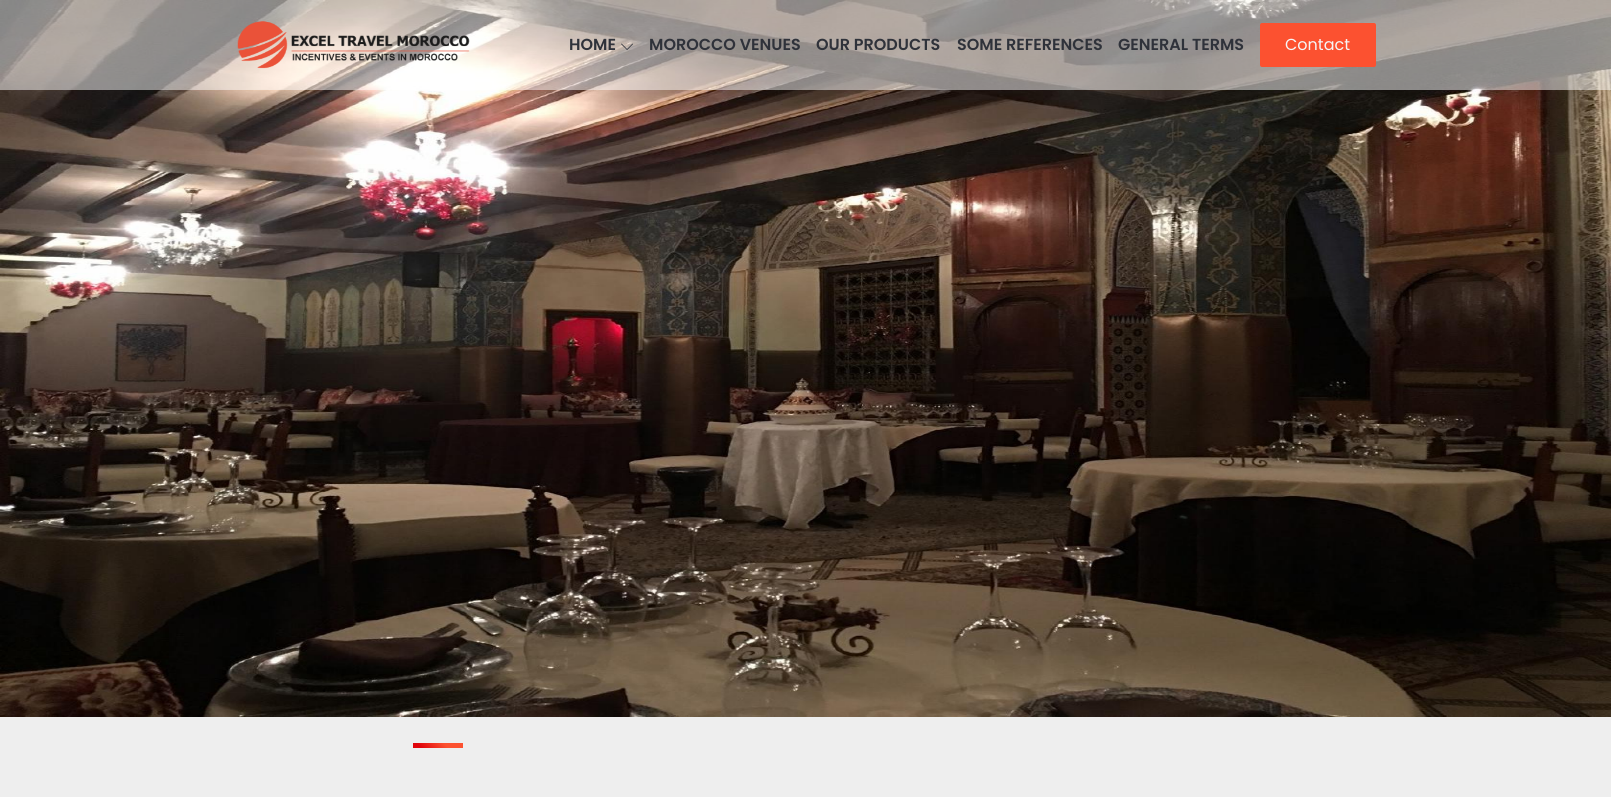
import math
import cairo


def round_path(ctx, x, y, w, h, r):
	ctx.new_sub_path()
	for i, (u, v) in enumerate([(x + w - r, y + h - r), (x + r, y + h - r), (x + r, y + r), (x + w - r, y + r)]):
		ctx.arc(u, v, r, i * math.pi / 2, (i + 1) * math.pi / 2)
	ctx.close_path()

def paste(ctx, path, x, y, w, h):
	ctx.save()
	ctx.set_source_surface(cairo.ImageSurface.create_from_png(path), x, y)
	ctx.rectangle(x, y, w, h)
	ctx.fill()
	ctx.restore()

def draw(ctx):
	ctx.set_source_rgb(0.933, 0.933, 0.933)
	ctx.paint()
	paste(ctx, 'media/1.png', 0, 0, 1611, 717)
	ctx.set_source_rgba(1, 1, 1, 0.51)
	ctx.rectangle(0, 0, 1611, 90)
	ctx.fill()
	paste(ctx, 'media/2.png', 237, 21, 233, 48)
	ctx.select_font_face('Poppins SemiBold')
	ctx.set_font_size(16)
	ctx.set_source_rgb(0.184, 0.196, 0.227)
	ctx.move_to(569, 50)
	ctx.show_text('HOME')
	paste(ctx, 'media/3.png', 621, 43, 12, 7)
	for x, y, s in [
		(649, 50, 'MOROCCO VENUES'),
		(816, 50, 'OUR PRODUCTS'),
		(957, 50, 'SOME REFERENCES'),
		(1118, 50, 'GENERAL TERMS'),
	]:
		ctx.move_to(x, y)
		ctx.show_text(s)
	ctx.set_source_rgb(0.988, 0.318, 0.188)
	round_path(ctx, 1260, 23, 116, 44, 2)
	ctx.fill()
	ctx.select_font_face('Poppins')
	ctx.set_source_rgb(0.961, 0.961, 0.961)
	ctx.move_to(1285, 50)
	ctx.show_text('Contact')
	gradient = cairo.LinearGradient(424, 759, 452, 732)
	gradient.add_color_stop_rgba(0.15, 0.878, 0.016, 0.043, 1)
	gradient.add_color_stop_rgba(0.65, 0.988, 0.318, 0.188, 1)
	ctx.set_source(gradient)
	ctx.rectangle(413, 743, 50, 5)
	ctx.fill()


surface = cairo.ImageSurface(cairo.FORMAT_RGB24, 1611, 797)
ctx = cairo.Context(surface)
options = cairo.FontOptions()
options.set_hint_metrics(cairo.HINT_METRICS_OFF)
options.set_hint_style(cairo.HINT_STYLE_NONE)
ctx.set_font_options(options)
ctx.set_miter_limit(4)
draw(ctx)
surface.write_to_png('image.png')
